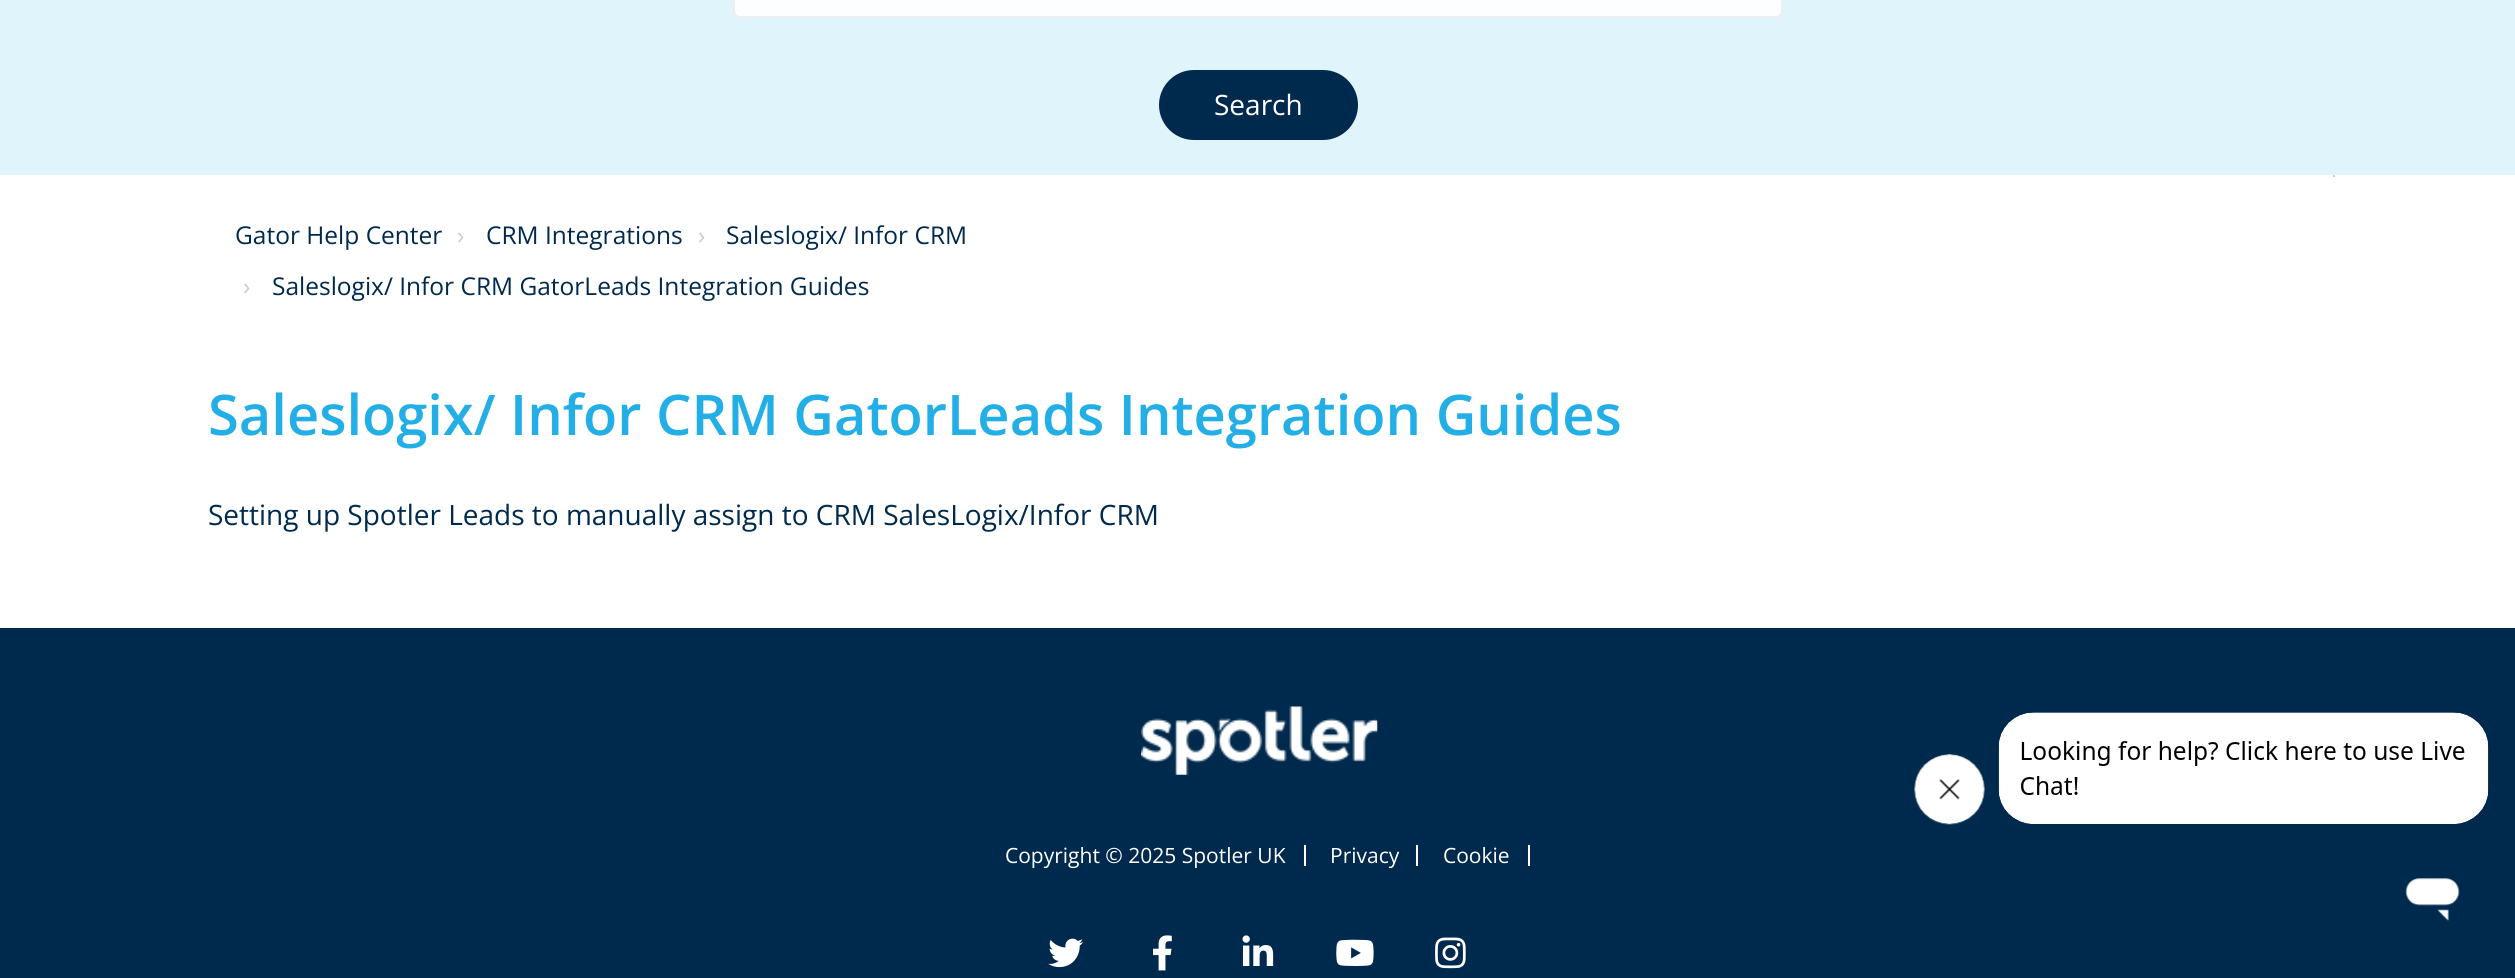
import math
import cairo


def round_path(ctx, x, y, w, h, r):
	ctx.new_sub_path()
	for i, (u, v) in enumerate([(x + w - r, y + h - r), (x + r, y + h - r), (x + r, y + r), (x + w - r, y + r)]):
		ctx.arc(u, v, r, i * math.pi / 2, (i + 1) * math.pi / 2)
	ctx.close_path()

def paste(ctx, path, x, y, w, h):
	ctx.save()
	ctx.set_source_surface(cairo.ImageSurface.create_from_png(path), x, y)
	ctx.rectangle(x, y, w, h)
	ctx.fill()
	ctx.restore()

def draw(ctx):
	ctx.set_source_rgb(1, 1, 1)
	ctx.paint()
	ctx.set_source_rgb(0.878, 0.957, 0.984)
	ctx.rectangle(0, 0, 2515, 175)
	ctx.fill()
	ctx.set_source_rgb(0.988, 0.996, 1)
	round_path(ctx, 734, -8, 1048, 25, 6)
	ctx.fill_preserve()
	ctx.set_source_rgb(0.925, 0.933, 0.937)
	ctx.stroke()
	ctx.set_source_rgb(0, 0.165, 0.302)
	round_path(ctx, 1161, 72, 195, 66, 33)
	ctx.fill_preserve()
	ctx.set_line_width(4)
	ctx.stroke()
	ctx.select_font_face('Open Sans')
	ctx.set_font_size(28)
	ctx.set_source_rgb(1, 1, 1)
	ctx.move_to(1214, 115)
	ctx.show_text('Search')
	ctx.set_source_rgb(0.8, 0.8, 0.8)
	ctx.rectangle(2333, 175, 2, 2)
	ctx.fill()
	ctx.set_font_size(24.5)
	ctx.set_source_rgb(0, 0.165, 0.302)
	ctx.move_to(235, 244)
	ctx.show_text('Gator Help Center')
	ctx.set_source_rgb(0.8, 0.8, 0.8)
	ctx.move_to(457, 244)
	ctx.show_text('›')
	ctx.set_source_rgb(0, 0.165, 0.302)
	ctx.move_to(486, 244)
	ctx.show_text('CRM Integrations')
	ctx.set_source_rgb(0.8, 0.8, 0.8)
	ctx.move_to(698, 244)
	ctx.show_text('›')
	ctx.set_source_rgb(0, 0.165, 0.302)
	ctx.move_to(726, 244)
	ctx.show_text('Saleslogix/ Infor CRM')
	ctx.set_source_rgb(0.8, 0.8, 0.8)
	ctx.move_to(243, 295)
	ctx.show_text('›')
	ctx.set_source_rgb(0, 0.165, 0.302)
	ctx.move_to(272, 295)
	ctx.show_text('Saleslogix/ Infor CRM GatorLeads Integration Guides')
	ctx.select_font_face('Open Sans SemiBold')
	ctx.set_font_size(56)
	ctx.set_source_rgb(0.137, 0.686, 0.902)
	ctx.move_to(208, 435)
	ctx.show_text('Saleslogix/ Infor CRM GatorLeads Integration Guides')
	ctx.select_font_face('Open Sans')
	ctx.set_font_size(28)
	ctx.set_source_rgb(0, 0.165, 0.302)
	ctx.move_to(208, 525)
	ctx.show_text('Setting up Spotler Leads to manually assign to CRM SalesLogix/Infor CRM')
	ctx.rectangle(0, 628, 2515, 350)
	ctx.fill()
	paste(ctx, 'media/1.png', 1141, 706, 237, 69)
	ctx.set_source_rgb(1, 1, 1)
	ctx.rectangle(1304, 845, 2, 21)
	ctx.fill()
	ctx.set_font_size(21)
	ctx.move_to(1005, 863)
	ctx.show_text('Copyright © 2025 Spotler UK')
	ctx.rectangle(1416, 845, 2, 21)
	ctx.fill()
	ctx.move_to(1330, 863)
	ctx.show_text('Privacy')
	ctx.rectangle(1528, 845, 2, 21)
	ctx.fill()
	ctx.move_to(1443, 863)
	ctx.show_text('Cookie')
	paste(ctx, 'media/2.png', 1048, 938, 36, 30)
	paste(ctx, 'media/3.png', 1153, 935, 19, 36)
	paste(ctx, 'media/4.png', 1242, 935, 32, 31)
	paste(ctx, 'media/5.png', 1336, 939, 38, 27)
	paste(ctx, 'media/6.png', 1435, 937, 31, 32)
	paste(ctx, 'media/7.png', 1914, 754, 71, 71)
	paste(ctx, 'media/8.png', 1998, 712, 491, 112)
	paste(ctx, 'media/9.png', 2377, 838, 101, 112)


surface = cairo.ImageSurface(cairo.FORMAT_RGB24, 2515, 978)
ctx = cairo.Context(surface)
options = cairo.FontOptions()
options.set_hint_metrics(cairo.HINT_METRICS_OFF)
options.set_hint_style(cairo.HINT_STYLE_NONE)
ctx.set_font_options(options)
ctx.set_miter_limit(4)
draw(ctx)
surface.write_to_png('image.png')
